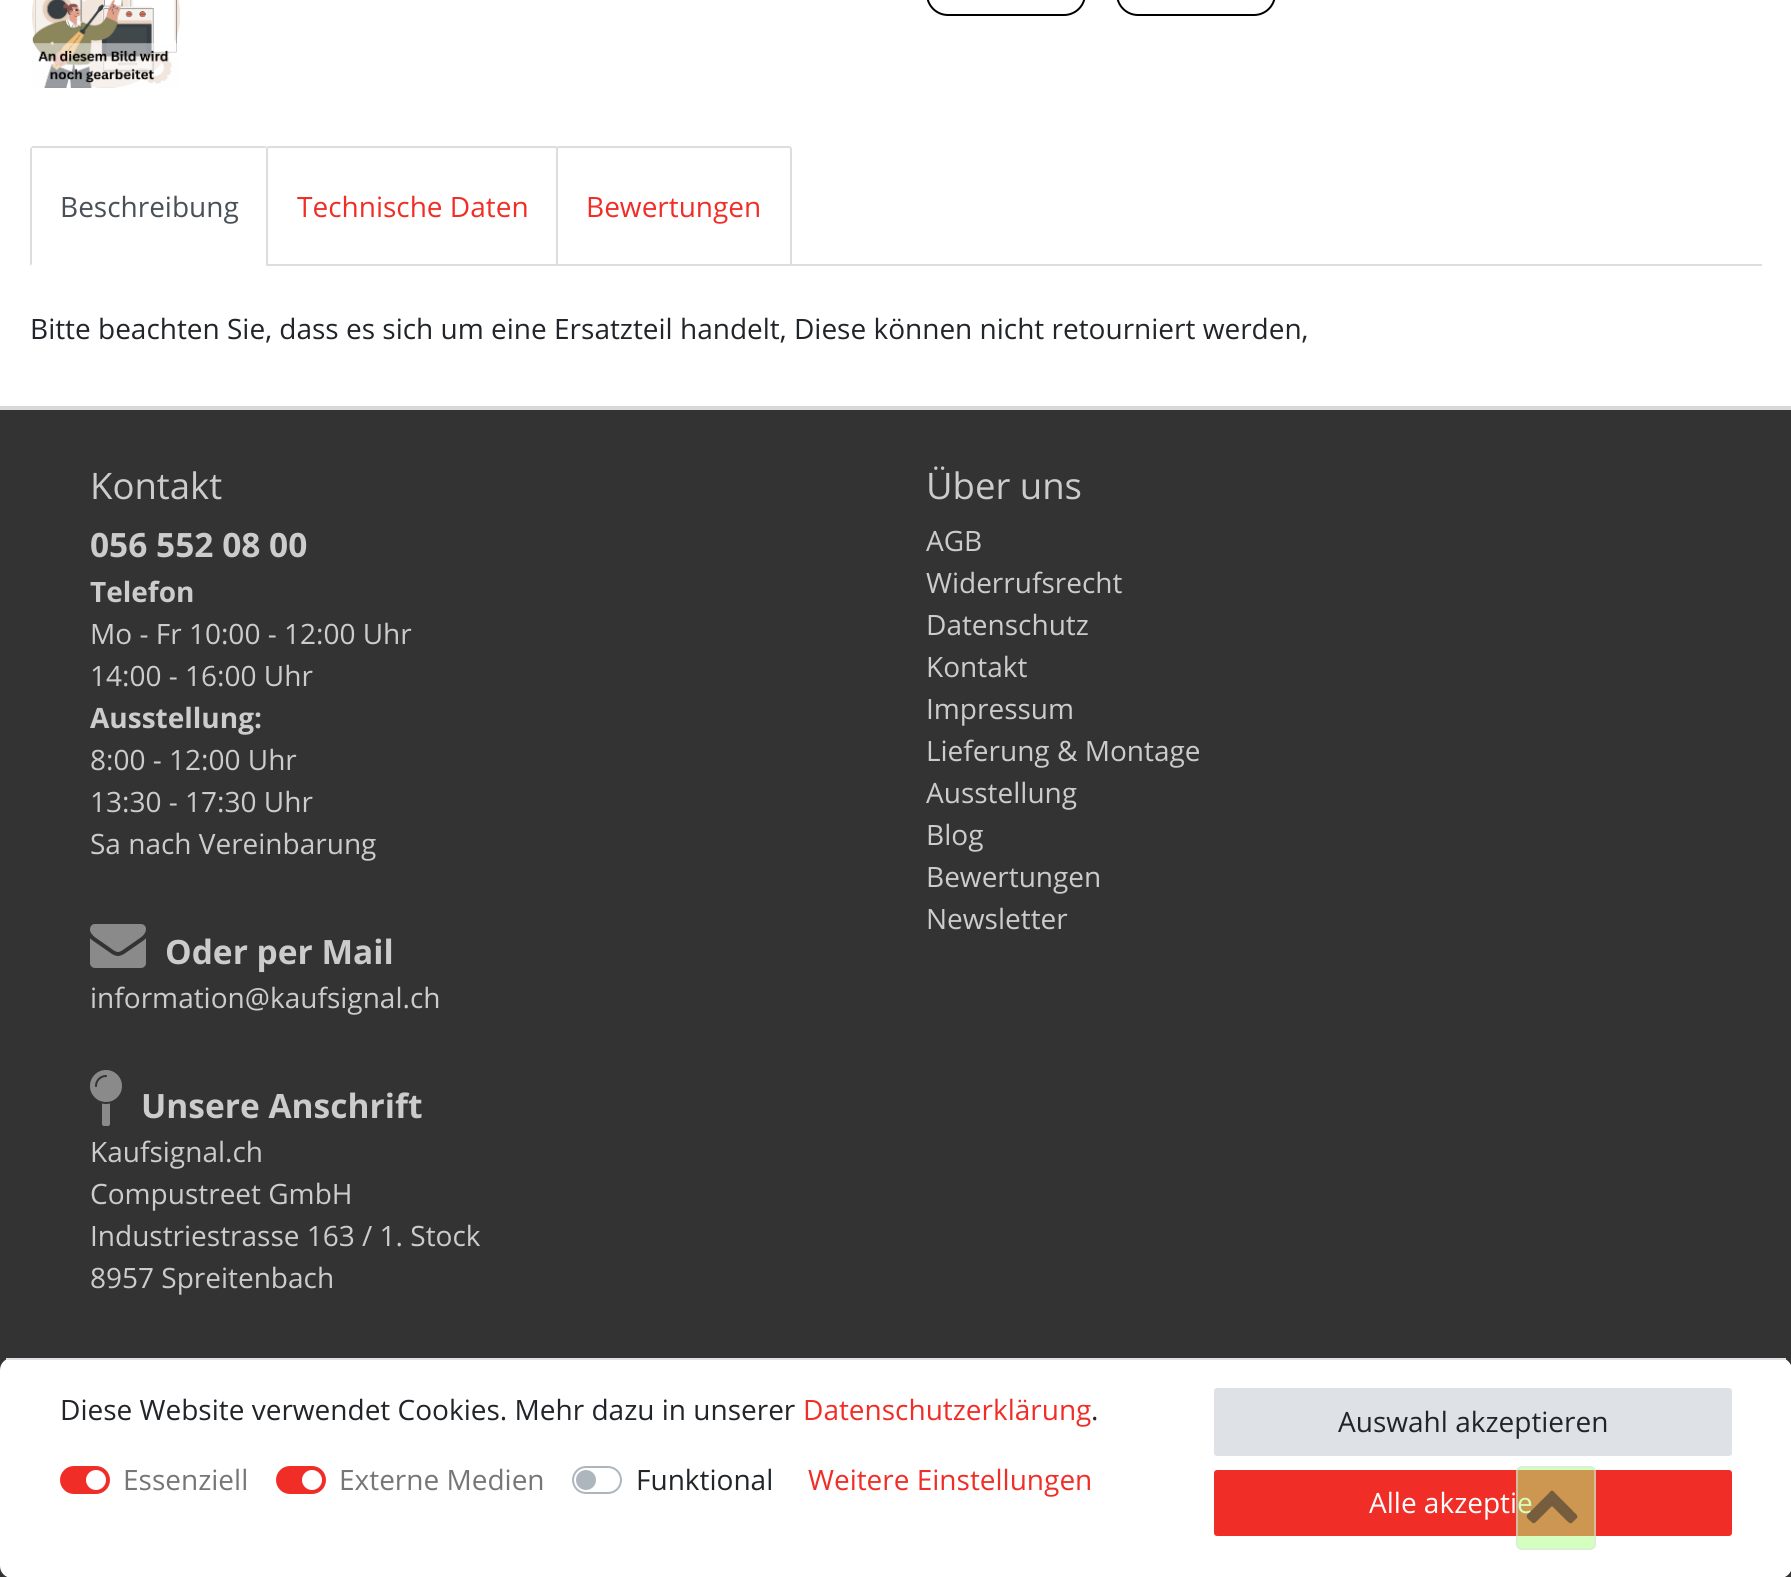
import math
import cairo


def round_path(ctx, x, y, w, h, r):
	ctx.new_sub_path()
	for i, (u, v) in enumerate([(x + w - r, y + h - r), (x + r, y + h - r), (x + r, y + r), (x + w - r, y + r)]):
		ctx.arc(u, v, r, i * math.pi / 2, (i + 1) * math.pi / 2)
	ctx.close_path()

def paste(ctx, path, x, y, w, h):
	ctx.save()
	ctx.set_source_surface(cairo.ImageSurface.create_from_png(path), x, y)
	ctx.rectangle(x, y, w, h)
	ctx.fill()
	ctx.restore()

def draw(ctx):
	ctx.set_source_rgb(1, 1, 1)
	ctx.paint()
	round_path(ctx, 927, -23, 158, 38, 21)
	ctx.set_source_rgb(0, 0, 0)
	ctx.stroke()
	round_path(ctx, 1117, -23, 158, 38, 21)
	ctx.stroke()
	paste(ctx, 'media/1.png', 32, 0, 148, 88)
	ctx.set_source_rgb(0.867, 0.867, 0.867)
	ctx.rectangle(792, 264, 970, 2)
	ctx.fill()
	ctx.new_path()
	ctx.move_to(33, 146)
	ctx.line_to(31, 147)
	ctx.line_to(32, 148)
	ctx.line_to(33, 148)
	ctx.line_to(265, 148)
	ctx.line_to(266, 148)
	ctx.line_to(267, 147)
	ctx.line_to(265, 146)
	ctx.close_path()
	ctx.fill()
	ctx.new_path()
	ctx.move_to(30, 266)
	ctx.line_to(32, 264)
	ctx.line_to(32, 149)
	ctx.line_to(32, 148)
	ctx.line_to(31, 147)
	ctx.line_to(30, 149)
	ctx.close_path()
	ctx.fill()
	ctx.select_font_face('Open Sans')
	ctx.set_font_size(28)
	ctx.set_source_rgb(0.286, 0.314, 0.341)
	ctx.move_to(60, 217)
	ctx.show_text('Beschreibung')
	ctx.new_path()
	ctx.move_to(269, 147)
	ctx.line_to(555, 147)
	ctx.curve_to(556, 147, 557, 148, 557, 149)
	ctx.line_to(557, 265)
	ctx.line_to(267, 265)
	ctx.line_to(267, 149)
	ctx.curve_to(267, 148, 268, 147, 269, 147)
	ctx.close_path()
	ctx.set_source_rgb(0.867, 0.867, 0.867)
	ctx.stroke()
	ctx.set_source_rgb(0.941, 0.18, 0.153)
	ctx.move_to(297, 217)
	ctx.show_text('Technische Daten')
	ctx.new_path()
	ctx.move_to(559, 147)
	ctx.line_to(789, 147)
	ctx.curve_to(790, 147, 791, 148, 791, 149)
	ctx.line_to(791, 265)
	ctx.line_to(557, 265)
	ctx.line_to(557, 149)
	ctx.curve_to(557, 148, 558, 147, 559, 147)
	ctx.close_path()
	ctx.set_source_rgb(0.867, 0.867, 0.867)
	ctx.stroke()
	ctx.set_source_rgb(0.941, 0.18, 0.153)
	ctx.move_to(586, 217)
	ctx.show_text('Bewertungen')
	ctx.set_source_rgb(0.129, 0.145, 0.161)
	ctx.move_to(30, 339)
	ctx.show_text('Bitte beachten Sie, dass es sich um eine Ersatzteil handelt, Diese können nicht retourniert werden,')
	ctx.set_source_rgb(0.2, 0.2, 0.2)
	ctx.rectangle(0, 410, 1791, 1167)
	ctx.fill()
	ctx.set_source_rgb(0.847, 0.847, 0.847)
	ctx.rectangle(0, 406, 1791, 4)
	ctx.fill()
	ctx.set_font_size(36.5)
	ctx.set_source_rgb(0.8, 0.8, 0.8)
	ctx.move_to(90, 499)
	ctx.show_text('Kontakt')
	ctx.select_font_face('Open Sans', cairo.FONT_SLANT_NORMAL, cairo.FONT_WEIGHT_BOLD)
	ctx.set_font_size(33.5)
	ctx.move_to(90, 557)
	ctx.show_text('056 552 08 00')
	ctx.set_font_size(28)
	ctx.move_to(90, 602)
	ctx.show_text('Telefon')
	ctx.select_font_face('Open Sans')
	ctx.move_to(90, 644)
	ctx.show_text('Mo - Fr 10:00 - 12:00 Uhr')
	ctx.move_to(90, 686)
	ctx.show_text('14:00 - 16:00 Uhr')
	ctx.select_font_face('Open Sans', cairo.FONT_SLANT_NORMAL, cairo.FONT_WEIGHT_BOLD)
	ctx.move_to(90, 728)
	ctx.show_text('Ausstellung:')
	ctx.select_font_face('Open Sans')
	for x, y, s in [
		(90, 770, '8:00 - 12:00 Uhr'),
		(90, 812, '13:30 - 17:30 Uhr'),
		(90, 854, 'Sa nach Vereinbarung'),
	]:
		ctx.move_to(x, y)
		ctx.show_text(s)
	paste(ctx, 'media/2.png', 90, 924, 56, 44)
	ctx.select_font_face('Open Sans', cairo.FONT_SLANT_NORMAL, cairo.FONT_WEIGHT_BOLD)
	ctx.set_font_size(33.5)
	ctx.move_to(165, 964)
	ctx.show_text('Oder per Mail')
	ctx.select_font_face('Open Sans')
	ctx.set_font_size(28)
	ctx.move_to(90, 1008)
	ctx.show_text('information@kaufsignal.ch')
	paste(ctx, 'media/3.png', 90, 1070, 32, 56)
	ctx.select_font_face('Open Sans', cairo.FONT_SLANT_NORMAL, cairo.FONT_WEIGHT_BOLD)
	ctx.set_font_size(33.5)
	ctx.move_to(141, 1118)
	ctx.show_text('Unsere Anschrift')
	ctx.select_font_face('Open Sans')
	ctx.set_font_size(28)
	for x, y, s in [
		(90, 1162, 'Kaufsignal.ch'),
		(90, 1204, 'Compustreet GmbH'),
		(90, 1246, 'Industriestrasse 163 / 1. Stock'),
		(90, 1288, '8957 Spreitenbach'),
	]:
		ctx.move_to(x, y)
		ctx.show_text(s)
	ctx.set_font_size(36.5)
	ctx.move_to(926, 499)
	ctx.show_text('Über uns')
	ctx.set_font_size(28)
	for x, y, s in [
		(926, 551, 'AGB'),
		(926, 593, 'Widerrufsrecht'),
		(926, 635, 'Datenschutz'),
		(926, 677, 'Kontakt'),
		(926, 719, 'Impressum'),
		(926, 761, 'Lieferung & Montage'),
		(926, 803, 'Ausstellung'),
		(926, 845, 'Blog'),
		(926, 887, 'Bewertungen'),
		(926, 929, 'Newsletter'),
	]:
		ctx.move_to(x, y)
		ctx.show_text(s)
	ctx.set_source_rgb(1, 1, 1)
	round_path(ctx, 0, 1358, 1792, 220, 12)
	ctx.fill()
	ctx.set_source_rgb(0.871, 0.886, 0.902)
	ctx.rectangle(6, 1358, 1780, 2)
	ctx.fill()
	ctx.set_source_rgb(0.129, 0.145, 0.161)
	ctx.move_to(60, 1420)
	ctx.show_text('Diese Website verwendet Cookies. Mehr dazu in unserer')
	ctx.set_source_rgb(0.941, 0.18, 0.153)
	ctx.move_to(803, 1420)
	ctx.show_text('Datenschutzerklärung')
	ctx.set_source_rgb(0.129, 0.145, 0.161)
	ctx.move_to(1091, 1420)
	ctx.show_text('.')
	ctx.set_source_rgb(0.941, 0.18, 0.153)
	round_path(ctx, 61, 1467, 48, 26, 13)
	ctx.fill_preserve()
	ctx.stroke()
	ctx.set_source_rgb(0.463, 0.463, 0.463)
	ctx.move_to(123, 1490)
	ctx.show_text('Essenziell')
	ctx.set_source_rgb(1, 1, 1)
	ctx.new_path()
	ctx.arc(96, 1480, 10, 0, 2 * math.pi)
	ctx.fill()
	ctx.set_source_rgb(0.941, 0.18, 0.153)
	round_path(ctx, 277, 1467, 48, 26, 13)
	ctx.fill_preserve()
	ctx.stroke()
	ctx.set_source_rgb(0.463, 0.463, 0.463)
	ctx.move_to(339, 1490)
	ctx.show_text('Externe Medien')
	ctx.set_source_rgb(1, 1, 1)
	ctx.new_path()
	ctx.arc(312, 1480, 10, 0, 2 * math.pi)
	ctx.fill()
	round_path(ctx, 573, 1467, 48, 26, 13)
	ctx.set_source_rgb(0.678, 0.71, 0.741)
	ctx.stroke()
	ctx.set_source_rgb(0.129, 0.145, 0.161)
	ctx.move_to(636, 1490)
	ctx.show_text('Funktional')
	ctx.set_source_rgb(0.678, 0.71, 0.741)
	ctx.new_path()
	ctx.arc(586, 1480, 10, 0, 2 * math.pi)
	ctx.fill()
	ctx.set_source_rgb(0.941, 0.18, 0.153)
	ctx.move_to(808, 1490)
	ctx.show_text('Weitere Einstellungen')
	ctx.set_source_rgb(0.871, 0.886, 0.902)
	round_path(ctx, 1215, 1389, 516, 66, 2)
	ctx.fill_preserve()
	ctx.stroke()
	ctx.set_source_rgb(0.129, 0.145, 0.161)
	ctx.move_to(1338, 1432)
	ctx.show_text('Auswahl akzeptieren')
	ctx.set_source_rgb(0.941, 0.18, 0.153)
	round_path(ctx, 1215, 1471, 516, 64, 2)
	ctx.fill_preserve()
	ctx.stroke()
	ctx.set_source_rgb(1, 1, 1)
	ctx.move_to(1369, 1513)
	ctx.show_text('Alle akzeptie')
	ctx.set_source_rgba(0.667, 1, 0.494, 0.5)
	round_path(ctx, 1516, 1466, 80, 84, 6)
	ctx.fill()
	round_path(ctx, 1517, 1467, 78, 82, 5)
	ctx.set_source_rgba(0.871, 0.886, 0.902, 0.5)
	ctx.stroke()
	ctx.set_source_rgba(0.129, 0.145, 0.161, 0.5)
	ctx.new_path()
	ctx.move_to(1577, 1518)
	ctx.curve_to(1571, 1523, 1572, 1526, 1566, 1520)
	ctx.line_to(1552, 1506)
	ctx.line_to(1538, 1520)
	ctx.curve_to(1533, 1525, 1534, 1524, 1528, 1519)
	ctx.curve_to(1525, 1515, 1528, 1514, 1531, 1511)
	ctx.line_to(1547, 1495)
	ctx.curve_to(1553, 1489, 1551, 1489, 1557, 1495)
	ctx.line_to(1573, 1511)
	ctx.curve_to(1573, 1512, 1579, 1515, 1577, 1518)
	ctx.close_path()
	ctx.fill()


surface = cairo.ImageSurface(cairo.FORMAT_RGB24, 1791, 1577)
ctx = cairo.Context(surface)
options = cairo.FontOptions()
options.set_hint_metrics(cairo.HINT_METRICS_OFF)
options.set_hint_style(cairo.HINT_STYLE_NONE)
ctx.set_font_options(options)
ctx.set_miter_limit(4)
draw(ctx)
surface.write_to_png('image.png')
